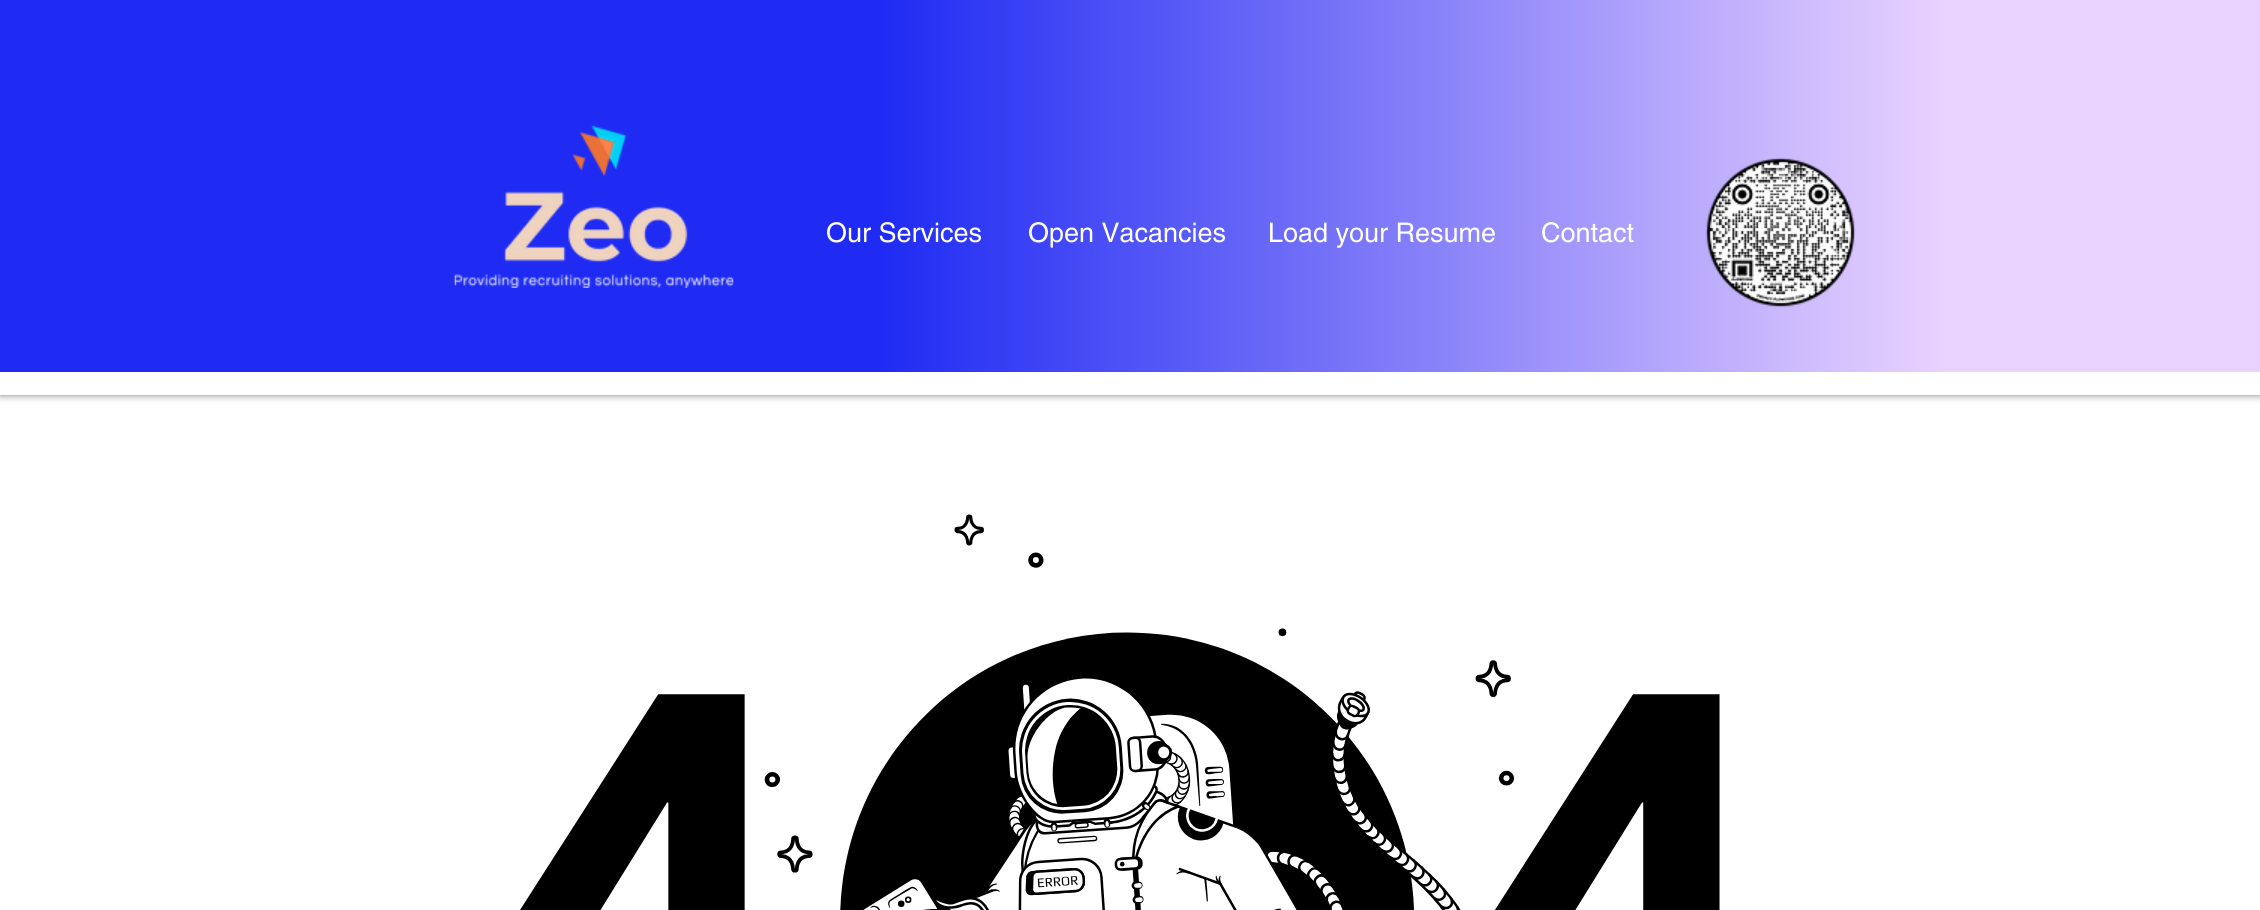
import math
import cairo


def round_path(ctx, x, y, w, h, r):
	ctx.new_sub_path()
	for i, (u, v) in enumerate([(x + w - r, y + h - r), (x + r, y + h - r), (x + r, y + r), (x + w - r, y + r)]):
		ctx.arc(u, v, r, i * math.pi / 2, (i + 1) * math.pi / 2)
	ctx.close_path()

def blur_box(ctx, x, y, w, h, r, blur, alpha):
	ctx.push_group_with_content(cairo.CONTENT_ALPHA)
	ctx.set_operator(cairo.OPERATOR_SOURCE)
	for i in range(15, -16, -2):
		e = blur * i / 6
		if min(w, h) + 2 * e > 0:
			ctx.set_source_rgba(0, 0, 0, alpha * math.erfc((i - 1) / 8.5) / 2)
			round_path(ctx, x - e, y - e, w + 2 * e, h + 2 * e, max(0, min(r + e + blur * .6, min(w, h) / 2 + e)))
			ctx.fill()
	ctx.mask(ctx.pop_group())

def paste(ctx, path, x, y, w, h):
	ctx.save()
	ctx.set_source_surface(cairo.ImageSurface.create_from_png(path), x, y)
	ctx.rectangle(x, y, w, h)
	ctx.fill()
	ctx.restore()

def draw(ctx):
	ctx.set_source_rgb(1, 1, 1)
	ctx.paint()
	ctx.set_source_rgb(0, 0, 0)
	blur_box(ctx, 0, 0, 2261, 395, 0, 4, 0.5)
	ctx.set_source_rgb(1, 1, 1)
	ctx.rectangle(0, 372, 2260, 23)
	ctx.fill()
	gradient = cairo.LinearGradient(0, 186, 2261, 186)
	gradient.add_color_stop_rgba(0.39, 0.122, 0.169, 0.953, 1)
	gradient.add_color_stop_rgba(0.86, 0.914, 0.824, 1, 1)
	ctx.set_source(gradient)
	ctx.rectangle(0, 0, 2260, 372)
	ctx.fill()
	paste(ctx, 'media/1.png', 454, 125, 280, 163)
	ctx.select_font_face('helvetica')
	ctx.set_font_size(27)
	ctx.set_source_rgb(1, 1, 1)
	for x, y, s in [
		(826, 242, 'Our Services'),
		(1028, 242, 'Open Vacancies'),
		(1268, 242, 'Load your Resume'),
		(1541, 242, 'Contact'),
	]:
		ctx.move_to(x, y)
		ctx.show_text(s)
	paste(ctx, 'media/2.png', 1705, 157, 151, 151)
	paste(ctx, 'media/3.png', 520, 514, 1200, 396)


surface = cairo.ImageSurface(cairo.FORMAT_RGB24, 2260, 910)
ctx = cairo.Context(surface)
options = cairo.FontOptions()
options.set_hint_metrics(cairo.HINT_METRICS_OFF)
options.set_hint_style(cairo.HINT_STYLE_NONE)
ctx.set_font_options(options)
ctx.set_miter_limit(4)
draw(ctx)
surface.write_to_png('image.png')
